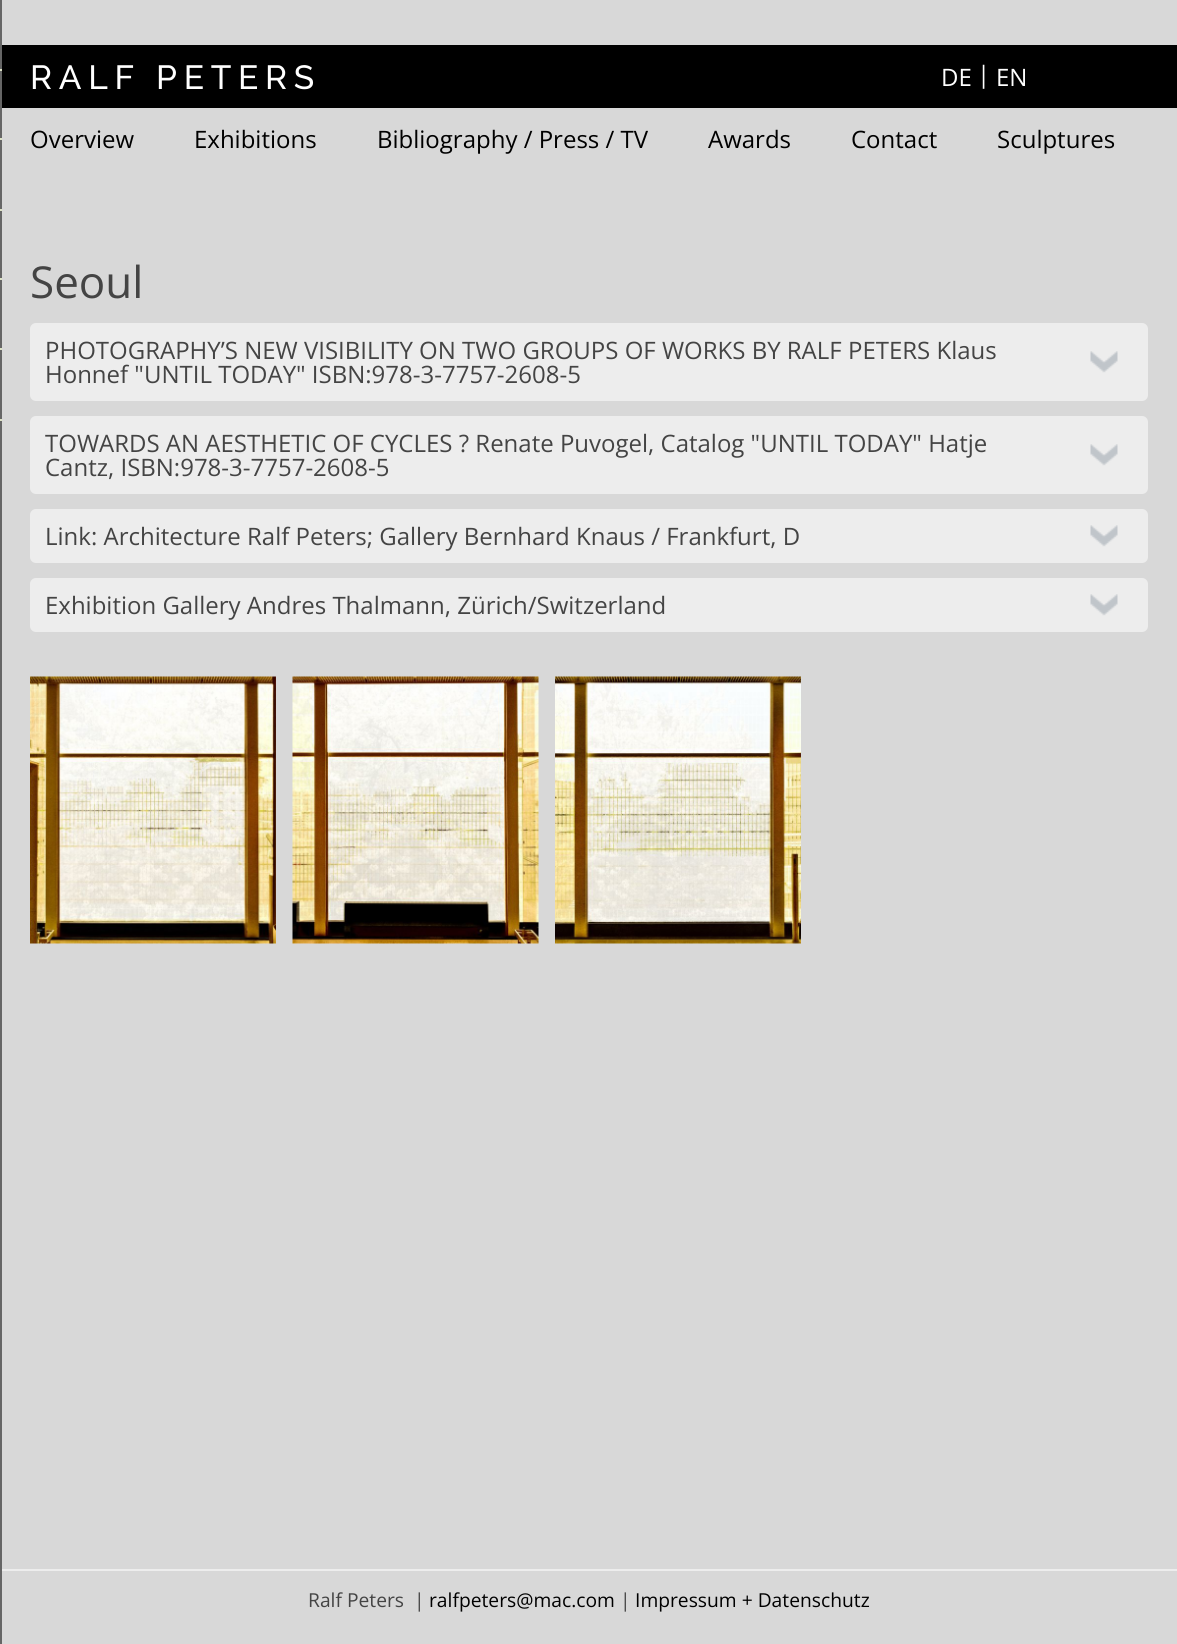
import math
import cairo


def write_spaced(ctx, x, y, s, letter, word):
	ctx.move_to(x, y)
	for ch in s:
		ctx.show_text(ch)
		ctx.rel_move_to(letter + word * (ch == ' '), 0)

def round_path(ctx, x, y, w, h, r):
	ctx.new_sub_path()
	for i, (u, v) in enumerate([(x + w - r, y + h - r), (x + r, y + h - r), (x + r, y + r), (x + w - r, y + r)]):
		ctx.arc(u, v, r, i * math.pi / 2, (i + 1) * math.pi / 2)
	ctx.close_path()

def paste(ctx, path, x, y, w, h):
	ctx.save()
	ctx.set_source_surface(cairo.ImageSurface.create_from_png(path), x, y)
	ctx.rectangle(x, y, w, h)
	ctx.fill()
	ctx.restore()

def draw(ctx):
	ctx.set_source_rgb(0.847, 0.847, 0.847)
	ctx.paint()
	ctx.set_source_rgb(0.929, 0.929, 0.929)
	ctx.rectangle(0, 1569, 1177, 2)
	ctx.fill()
	ctx.set_source_rgb(0.4, 0.4, 0.4)
	ctx.rectangle(0, 0, 2, 1644)
	ctx.fill()
	ctx.set_source_rgb(0.863, 0.886, 0.776)
	ctx.rectangle(0, 69, 2, 2)
	ctx.rectangle(0, 138, 2, 2)
	ctx.rectangle(0, 209, 2, 2)
	ctx.rectangle(0, 278, 2, 2)
	ctx.rectangle(0, 348, 2, 2)
	ctx.rectangle(0, 419, 2, 2)
	ctx.fill()
	ctx.set_source_rgb(0, 0, 0)
	ctx.rectangle(2, 45, 1175, 63)
	ctx.fill()
	ctx.select_font_face('Raleway Thin')
	ctx.set_font_size(33.5)
	ctx.set_source_rgb(1, 1, 1)
	write_spaced(ctx, 30, 89, 'RALF PETERS', 6.75, 0)
	ctx.select_font_face('Open Sans')
	ctx.set_font_size(24)
	for x, y, s in [
		(941, 86, 'DE'),
		(977, 83, '|'),
		(996, 86, 'EN'),
	]:
		ctx.move_to(x, y)
		ctx.show_text(s)
	ctx.set_source_rgb(0, 0, 0)
	for x, y, s in [
		(30, 148, 'Overview'),
		(194, 148, 'Exhibitions'),
		(377, 148, 'Bibliography / Press / TV'),
		(708, 148, 'Awards'),
		(851, 148, 'Contact'),
		(997, 148, 'Sculptures'),
	]:
		ctx.move_to(x, y)
		ctx.show_text(s)
	ctx.set_font_size(44)
	ctx.set_source_rgb(0.267, 0.267, 0.267)
	ctx.move_to(30, 298)
	ctx.show_text('Seoul')
	ctx.set_source_rgb(0.929, 0.929, 0.929)
	round_path(ctx, 30, 323, 1118, 78, 6)
	ctx.fill()
	paste(ctx, 'media/1.png', 1090, 351, 28, 22)
	ctx.set_font_size(24)
	ctx.set_source_rgb(0.267, 0.267, 0.267)
	ctx.move_to(45, 359)
	ctx.show_text('PHOTOGRAPHY’S NEW VISIBILITY ON TWO GROUPS OF WORKS BY RALF PETERS Klaus')
	ctx.move_to(45, 383)
	ctx.show_text('Honnef "UNTIL TODAY" ISBN:978-3-7757-2608-5')
	ctx.set_source_rgb(0.929, 0.929, 0.929)
	round_path(ctx, 30, 416, 1118, 78, 6)
	ctx.fill()
	paste(ctx, 'media/1.png', 1090, 444, 28, 22)
	ctx.set_source_rgb(0.267, 0.267, 0.267)
	ctx.move_to(45, 452)
	ctx.show_text('TOWARDS AN AESTHETIC OF CYCLES ? Renate Puvogel, Catalog "UNTIL TODAY" Hatje')
	ctx.move_to(45, 476)
	ctx.show_text('Cantz, ISBN:978-3-7757-2608-5')
	ctx.set_source_rgb(0.929, 0.929, 0.929)
	round_path(ctx, 30, 509, 1118, 54, 6)
	ctx.fill()
	paste(ctx, 'media/1.png', 1090, 525, 28, 22)
	ctx.set_source_rgb(0.267, 0.267, 0.267)
	ctx.move_to(45, 545)
	ctx.show_text('Link: Architecture Ralf Peters; Gallery Bernhard Knaus / Frankfurt, D')
	ctx.set_source_rgb(0.929, 0.929, 0.929)
	round_path(ctx, 30, 578, 1118, 54, 6)
	ctx.fill()
	paste(ctx, 'media/1.png', 1090, 594, 28, 22)
	ctx.set_source_rgb(0.267, 0.267, 0.267)
	ctx.move_to(45, 614)
	ctx.show_text('Exhibition Gallery Andres Thalmann, Zürich/Switzerland')
	paste(ctx, 'media/2.png', 30, 676, 246, 268)
	paste(ctx, 'media/3.png', 292, 676, 247, 268)
	paste(ctx, 'media/4.png', 555, 676, 246, 268)
	ctx.set_font_size(19.25)
	ctx.move_to(308, 1607)
	ctx.show_text('Ralf Peters  |')
	ctx.set_source_rgb(0, 0, 0)
	ctx.move_to(429, 1607)
	ctx.show_text('ralfpeters@mac.com')
	ctx.set_source_rgb(0.267, 0.267, 0.267)
	ctx.move_to(620, 1607)
	ctx.show_text('|')
	ctx.set_source_rgb(0, 0, 0)
	ctx.move_to(635, 1607)
	ctx.show_text('Impressum + Datenschutz')


surface = cairo.ImageSurface(cairo.FORMAT_RGB24, 1177, 1644)
ctx = cairo.Context(surface)
options = cairo.FontOptions()
options.set_hint_metrics(cairo.HINT_METRICS_OFF)
options.set_hint_style(cairo.HINT_STYLE_NONE)
ctx.set_font_options(options)
ctx.set_miter_limit(4)
draw(ctx)
surface.write_to_png('image.png')
